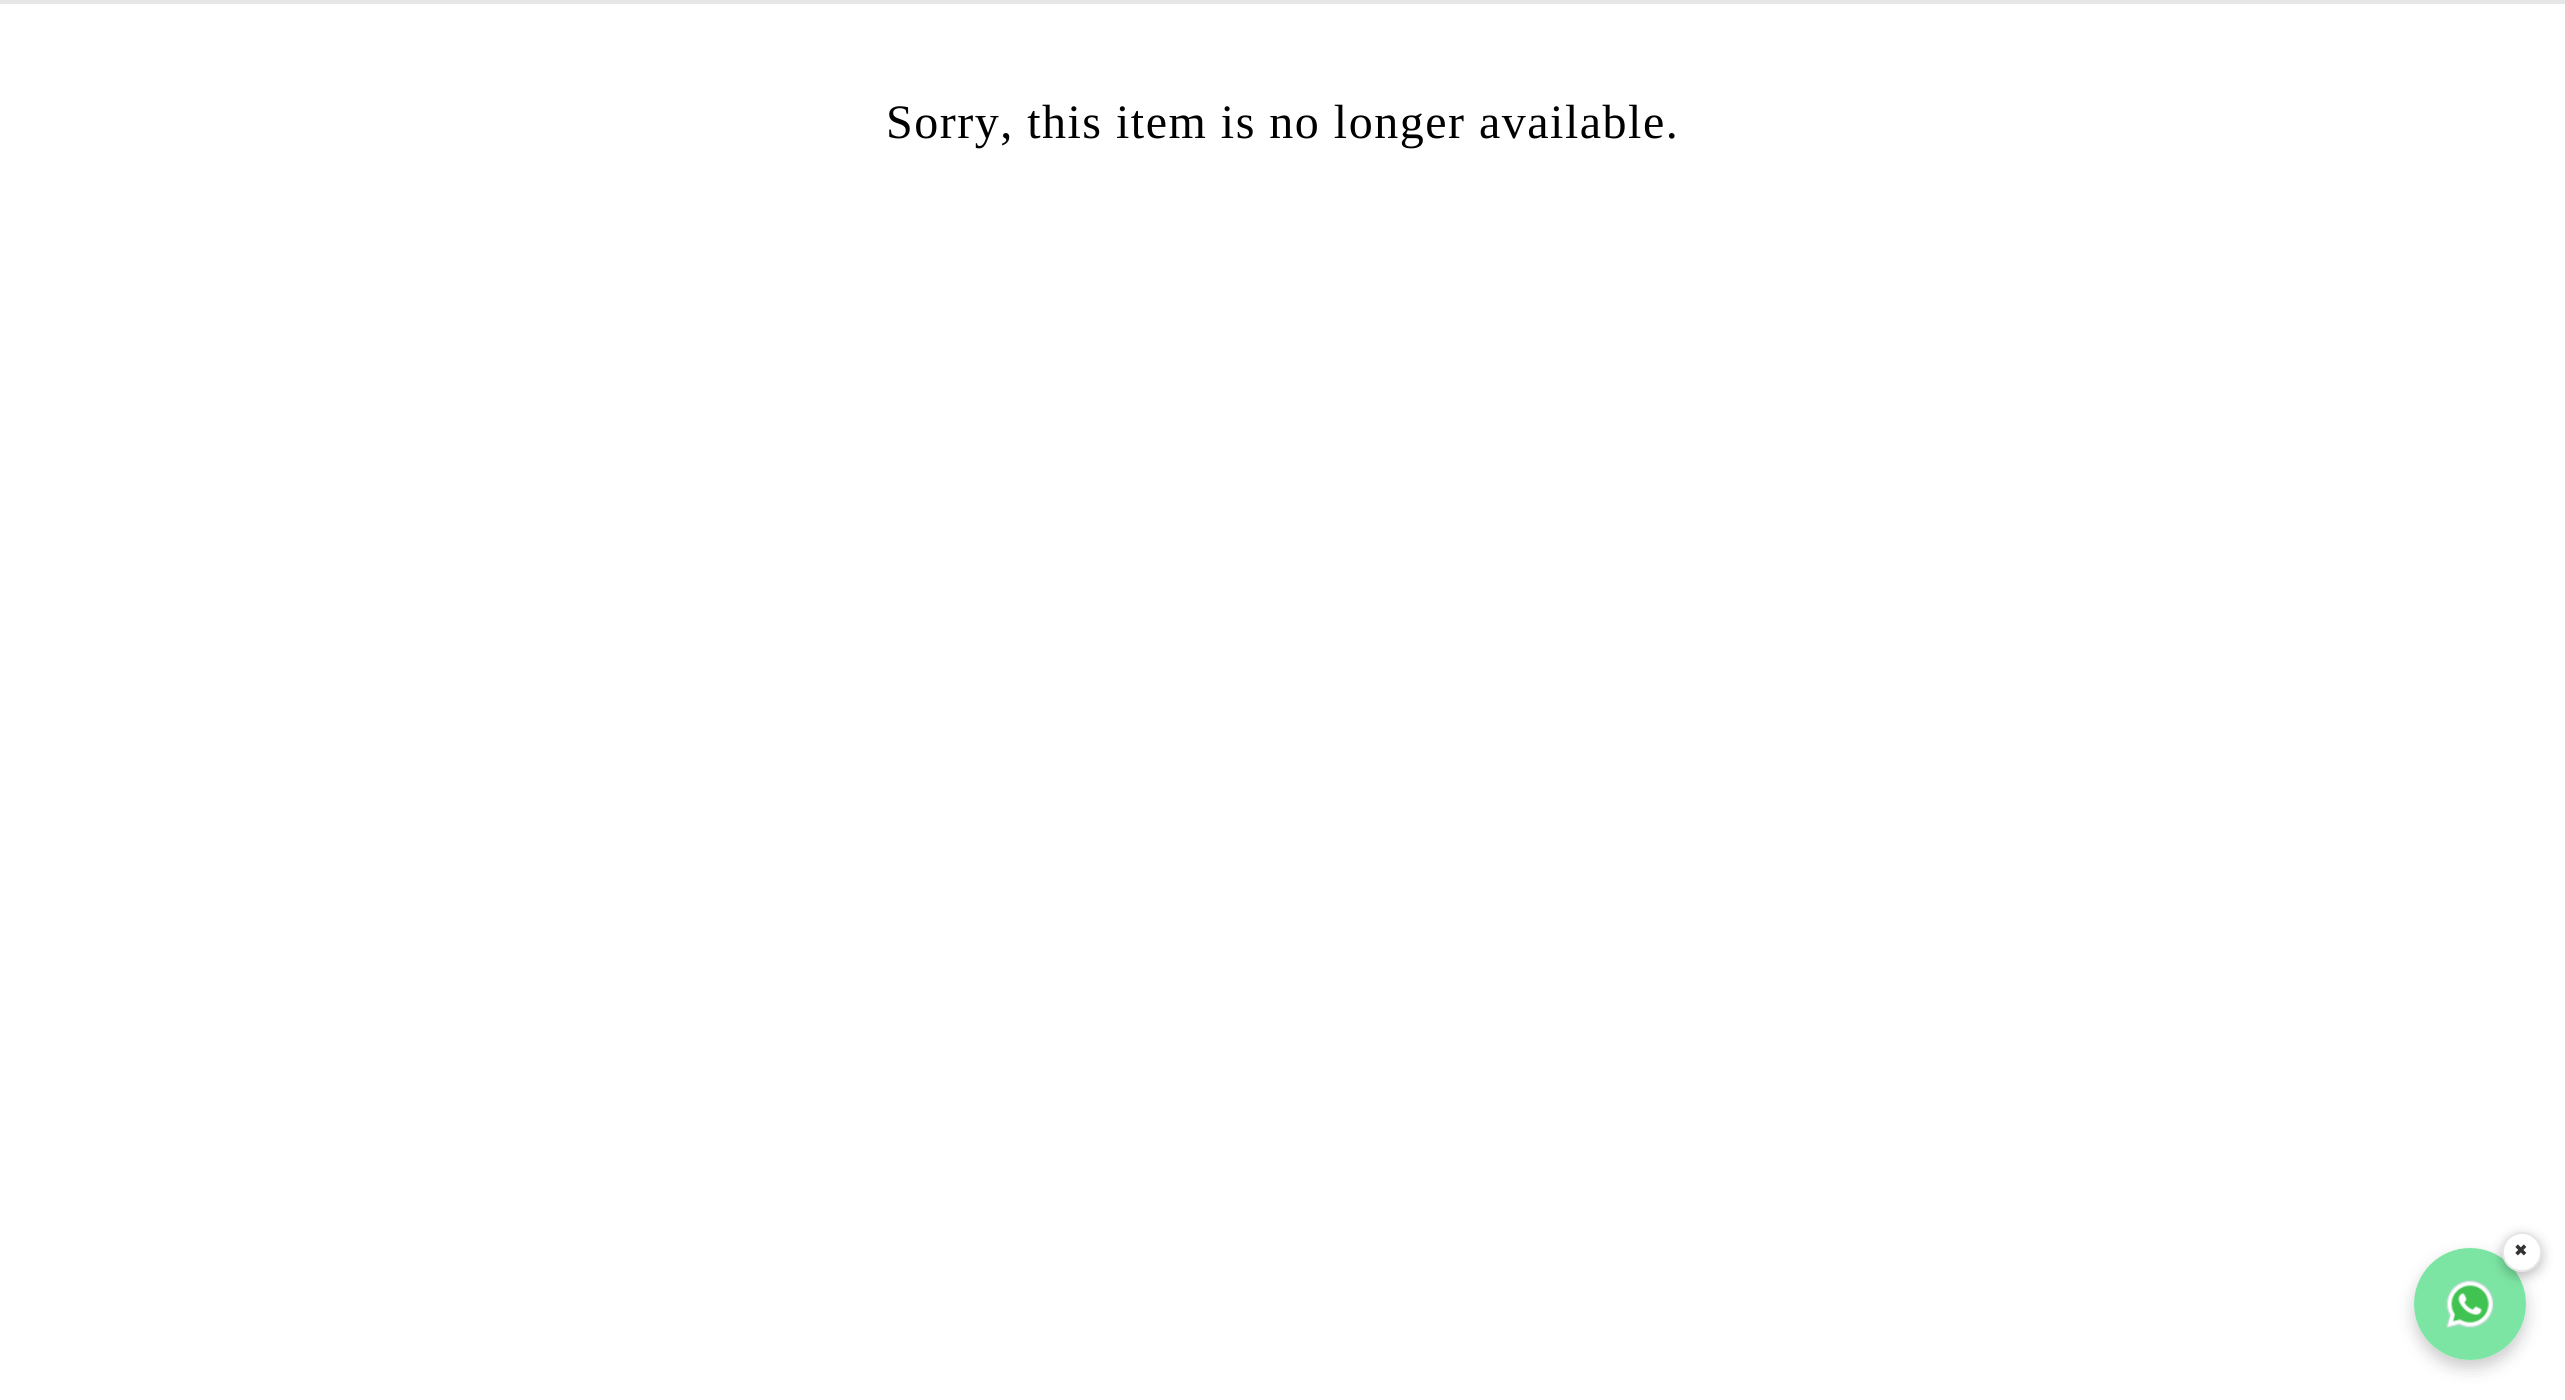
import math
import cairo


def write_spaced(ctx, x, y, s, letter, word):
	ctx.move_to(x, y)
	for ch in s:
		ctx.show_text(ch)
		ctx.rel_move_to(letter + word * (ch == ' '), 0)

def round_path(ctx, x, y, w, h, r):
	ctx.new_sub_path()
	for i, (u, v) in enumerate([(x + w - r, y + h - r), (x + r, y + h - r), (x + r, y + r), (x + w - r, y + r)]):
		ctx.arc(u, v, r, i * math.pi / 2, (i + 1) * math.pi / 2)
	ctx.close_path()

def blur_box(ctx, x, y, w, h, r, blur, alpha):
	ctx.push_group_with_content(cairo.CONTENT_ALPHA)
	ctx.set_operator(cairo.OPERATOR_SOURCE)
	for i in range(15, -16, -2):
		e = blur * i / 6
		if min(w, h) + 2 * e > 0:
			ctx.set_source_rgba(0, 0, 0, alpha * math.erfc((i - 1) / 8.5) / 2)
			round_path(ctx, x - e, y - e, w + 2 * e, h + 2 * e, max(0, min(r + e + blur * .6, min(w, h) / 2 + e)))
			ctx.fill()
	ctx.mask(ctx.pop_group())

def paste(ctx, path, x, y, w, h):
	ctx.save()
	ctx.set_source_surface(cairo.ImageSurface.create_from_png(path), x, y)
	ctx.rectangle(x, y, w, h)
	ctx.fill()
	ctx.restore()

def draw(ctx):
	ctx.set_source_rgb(1, 1, 1)
	ctx.paint()
	ctx.set_source_rgb(0.902, 0.902, 0.902)
	ctx.rectangle(0, 0, 2565, 4)
	ctx.fill()
	ctx.select_font_face('Liberation Serif')
	ctx.set_font_size(48)
	ctx.set_source_rgb(0, 0, 0)
	write_spaced(ctx, 886, 138, 'Sorry, this item is no longer available.', 1.5, 0)
	ctx.save()
	ctx.set_fill_rule(cairo.FILL_RULE_EVEN_ODD)
	ctx.new_path()
	ctx.move_to(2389, 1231)
	ctx.line_to(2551, 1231)
	ctx.line_to(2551, 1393)
	ctx.line_to(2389, 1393)
	ctx.close_path()
	ctx.move_to(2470, 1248)
	ctx.curve_to(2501, 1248, 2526, 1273, 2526, 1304)
	ctx.curve_to(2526, 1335, 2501, 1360, 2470, 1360)
	ctx.curve_to(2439, 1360, 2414, 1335, 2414, 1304)
	ctx.curve_to(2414, 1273, 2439, 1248, 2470, 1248)
	ctx.close_path()
	ctx.clip()
	ctx.set_source_rgb(0, 0, 0)
	blur_box(ctx, 2414, 1256, 112, 112, 56, 8, 0.2)
	ctx.restore()
	ctx.set_source_rgba(0.145, 0.827, 0.4, 0.6)
	ctx.arc(2470, 1304, 56, 0, 2 * math.pi)
	ctx.fill()
	paste(ctx, 'media/1.png', 2446, 1280, 48, 49)
	ctx.set_source_rgb(0, 0, 0)
	blur_box(ctx, 2502, 1236, 40, 40, 20, 6, 0.25)
	ctx.set_source_rgb(1, 1, 1)
	ctx.arc(2522, 1252, 20, 0, 2 * math.pi)
	ctx.fill()
	ctx.arc(2522, 1252, 19, 0, 2 * math.pi)
	ctx.set_source_rgba(0, 0, 0, 0.1)
	ctx.stroke()
	ctx.select_font_face('Gilroy')
	ctx.set_font_size(26)
	ctx.set_source_rgb(0.2, 0.2, 0.2)
	write_spaced(ctx, 2514, 1259, '×', 1.5, 0)


surface = cairo.ImageSurface(cairo.FORMAT_RGB24, 2565, 1400)
ctx = cairo.Context(surface)
options = cairo.FontOptions()
options.set_hint_metrics(cairo.HINT_METRICS_OFF)
options.set_hint_style(cairo.HINT_STYLE_NONE)
ctx.set_font_options(options)
ctx.set_miter_limit(4)
draw(ctx)
surface.write_to_png('image.png')
